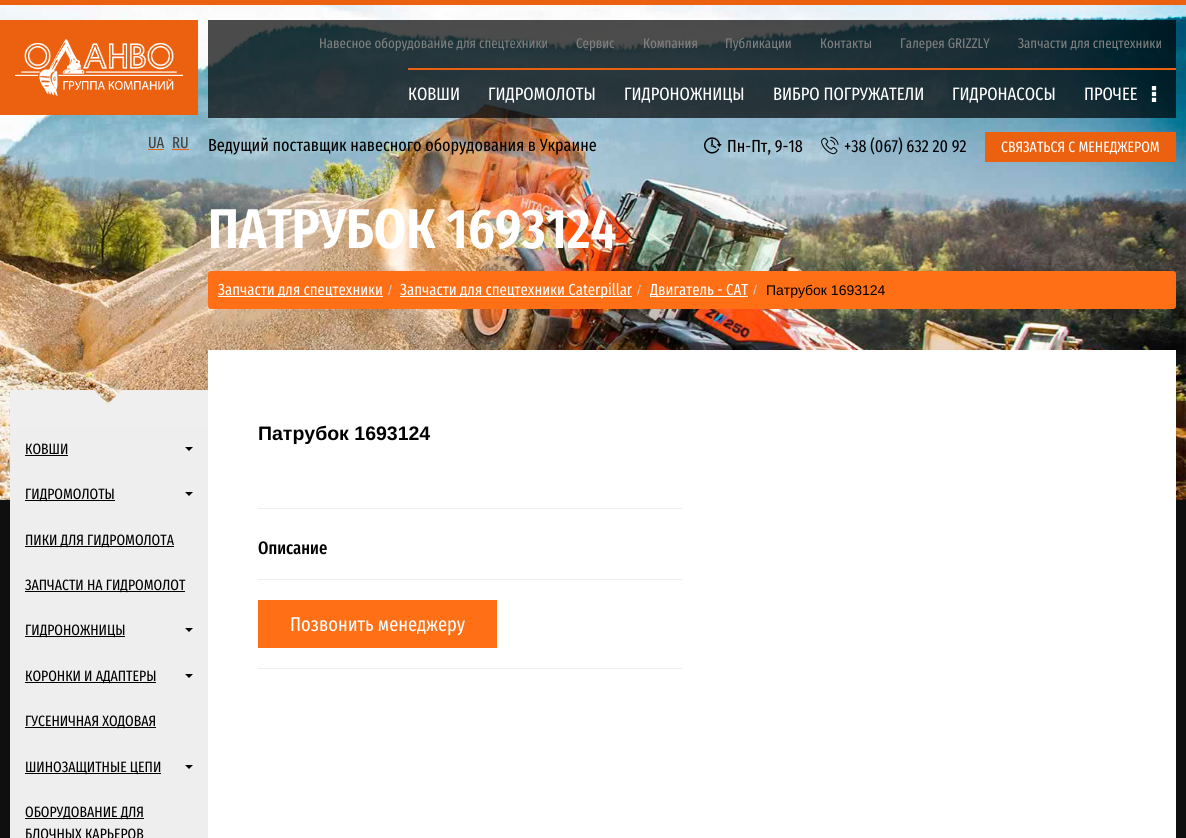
import math
import cairo


def round_path(ctx, x, y, w, h, r):
	ctx.new_sub_path()
	for i, (u, v) in enumerate([(x + w - r, y + h - r), (x + r, y + h - r), (x + r, y + r), (x + w - r, y + r)]):
		ctx.arc(u, v, r, i * math.pi / 2, (i + 1) * math.pi / 2)
	ctx.close_path()

def paste(ctx, path, x, y, w, h):
	ctx.save()
	ctx.set_source_surface(cairo.ImageSurface.create_from_png(path), x, y)
	ctx.rectangle(x, y, w, h)
	ctx.fill()
	ctx.restore()

def draw(ctx):
	ctx.set_source_rgb(0.059, 0.059, 0.059)
	ctx.paint()
	paste(ctx, 'media/1.png', 0, 5, 1186, 495)
	ctx.set_source_rgb(0.918, 0.38, 0.063)
	ctx.rectangle(0, 0, 1186, 5)
	ctx.fill()
	ctx.rectangle(0, 20, 198, 95)
	ctx.fill()
	paste(ctx, 'media/2.png', 15, 39, 168, 57)
	ctx.set_source_rgba(0, 0, 0, 0.7)
	ctx.rectangle(208, 20, 968, 98)
	ctx.fill()
	ctx.select_font_face('Fira Sans Extra Condensed')
	ctx.set_font_size(14)
	ctx.set_source_rgb(0.498, 0.502, 0.502)
	for x, y, s in [
		(319, 48, 'Навесное оборудование для спецтехники'),
		(576, 48, 'Сервис'),
		(643, 48, 'Компания'),
		(725, 48, 'Публикации'),
		(820, 48, 'Контакты'),
		(900, 48, 'Галерея GRIZZLY'),
		(1018, 48, 'Запчасти для спецтехники'),
	]:
		ctx.move_to(x, y)
		ctx.show_text(s)
	ctx.set_source_rgb(0.918, 0.38, 0.063)
	ctx.rectangle(408, 68, 768, 2)
	ctx.fill()
	ctx.set_font_size(18)
	ctx.set_source_rgb(1, 1, 1)
	for x, y, s in [
		(408, 100, 'КОВШИ'),
		(488, 100, 'ГИДРОМОЛОТЫ'),
		(624, 100, 'ГИДРОНОЖНИЦЫ'),
		(773, 100, 'ВИБРО ПОГРУЖАТЕЛИ'),
		(952, 100, 'ГИДРОНАCOCЫ'),
		(1084, 100, 'ПРОЧЕЕ'),
	]:
		ctx.move_to(x, y)
		ctx.show_text(s)
	paste(ctx, 'media/3.png', 1151, 86, 6, 16)
	ctx.set_font_size(16)
	ctx.set_source_rgb(0.243, 0.251, 0.243)
	ctx.move_to(148, 148)
	ctx.show_text('UA')
	ctx.set_source_rgb(0.918, 0.38, 0.063)
	ctx.rectangle(148, 149, 16, 1)
	ctx.fill()
	ctx.set_source_rgb(0.243, 0.251, 0.243)
	ctx.move_to(172, 148)
	ctx.show_text('RU')
	ctx.set_source_rgb(0.918, 0.38, 0.063)
	ctx.rectangle(172, 149, 17, 1)
	ctx.fill()
	ctx.set_font_size(17.5)
	ctx.set_source_rgb(0, 0, 0)
	ctx.move_to(208, 151)
	ctx.show_text('Ведущий поставщик навесного оборудования в Украине')
	paste(ctx, 'media/4.png', 704, 137, 18, 17)
	ctx.move_to(727, 152)
	ctx.show_text('Пн-Пт, 9-18')
	paste(ctx, 'media/5.png', 821, 136, 18, 19)
	ctx.move_to(844, 152)
	ctx.show_text('+38 (067) 632 20 92')
	ctx.set_source_rgb(0.918, 0.38, 0.063)
	ctx.rectangle(985, 132, 191, 30)
	ctx.fill()
	ctx.set_font_size(15)
	ctx.set_source_rgb(1, 1, 1)
	ctx.move_to(1001, 152)
	ctx.show_text('СВЯЗАТЬСЯ С МЕНЕДЖЕРОМ')
	ctx.select_font_face('Fira Sans Extra Condensed SemiBold')
	ctx.set_font_size(56)
	ctx.move_to(208, 248)
	ctx.show_text('ПАТРУБОК 1693124')
	ctx.set_source_rgb(1, 0.435, 0.086)
	round_path(ctx, 208, 271, 968, 38, 3)
	ctx.fill()
	ctx.set_source_rgb(1, 1, 1)
	ctx.rectangle(218, 296, 165, 1)
	ctx.fill()
	ctx.select_font_face('Fira Sans Extra Condensed')
	ctx.set_font_size(16)
	ctx.move_to(218, 295)
	ctx.show_text('Запчасти для спецтехники')
	ctx.select_font_face('Liberation Sans')
	ctx.set_font_size(14)
	ctx.set_source_rgb(0.8, 0.8, 0.8)
	ctx.move_to(388, 295)
	ctx.show_text('/')
	ctx.set_source_rgb(1, 1, 1)
	ctx.rectangle(400, 296, 232, 1)
	ctx.fill()
	ctx.select_font_face('Fira Sans Extra Condensed')
	ctx.set_font_size(16)
	ctx.move_to(400, 295)
	ctx.show_text('Запчасти для спецтехники Caterpillar')
	ctx.select_font_face('Liberation Sans')
	ctx.set_font_size(14)
	ctx.set_source_rgb(0.8, 0.8, 0.8)
	ctx.move_to(637, 295)
	ctx.show_text('/')
	ctx.set_source_rgb(1, 1, 1)
	ctx.rectangle(650, 296, 98, 1)
	ctx.fill()
	ctx.select_font_face('Fira Sans Extra Condensed')
	ctx.set_font_size(16)
	ctx.move_to(650, 295)
	ctx.show_text('Двигатель - CAT')
	ctx.select_font_face('Liberation Sans')
	ctx.set_font_size(14)
	ctx.set_source_rgb(0.8, 0.8, 0.8)
	ctx.move_to(753, 295)
	ctx.show_text('/')
	ctx.set_source_rgb(0, 0, 0)
	ctx.move_to(766, 295)
	ctx.show_text('Патрубок 1693124')
	paste(ctx, 'media/6.png', 10, 390, 198, 37)
	ctx.set_source_rgb(0.933, 0.933, 0.933)
	ctx.rectangle(10, 427, 198, 411)
	ctx.fill()
	ctx.select_font_face('Fira Sans Extra Condensed')
	ctx.set_font_size(15)
	ctx.set_source_rgb(0, 0, 0)
	ctx.move_to(25, 454)
	ctx.show_text('КОВШИ')
	ctx.rectangle(25, 455, 43, 1)
	ctx.fill()
	ctx.new_path()
	ctx.move_to(185, 447)
	ctx.line_to(193, 447)
	ctx.line_to(189, 451)
	ctx.close_path()
	ctx.fill()
	ctx.rectangle(25, 500, 90, 1)
	ctx.fill()
	ctx.move_to(25, 499)
	ctx.show_text('ГИДРОМОЛОТЫ')
	ctx.new_path()
	ctx.move_to(185, 492)
	ctx.line_to(193, 492)
	ctx.line_to(189, 496)
	ctx.close_path()
	ctx.fill()
	ctx.rectangle(25, 546, 149, 1)
	ctx.fill()
	ctx.move_to(25, 545)
	ctx.show_text('ПИКИ ДЛЯ ГИДРОМОЛОТА')
	ctx.rectangle(25, 591, 160, 1)
	ctx.fill()
	ctx.move_to(25, 590)
	ctx.show_text('ЗАПЧАСТИ НА ГИДРОМОЛОТ')
	ctx.rectangle(25, 636, 100, 1)
	ctx.fill()
	ctx.move_to(25, 635)
	ctx.show_text('ГИДРОНОЖНИЦЫ')
	ctx.new_path()
	ctx.move_to(185, 628)
	ctx.line_to(193, 628)
	ctx.line_to(189, 632)
	ctx.close_path()
	ctx.fill()
	ctx.rectangle(25, 682, 131, 1)
	ctx.fill()
	ctx.move_to(25, 681)
	ctx.show_text('КОРОНКИ И АДАПТЕРЫ')
	ctx.new_path()
	ctx.move_to(185, 674)
	ctx.line_to(193, 674)
	ctx.line_to(189, 678)
	ctx.close_path()
	ctx.fill()
	ctx.rectangle(25, 727, 131, 1)
	ctx.fill()
	ctx.move_to(25, 726)
	ctx.show_text('ГУСЕНИЧНАЯ ХОДОВАЯ')
	ctx.rectangle(25, 773, 136, 1)
	ctx.fill()
	ctx.move_to(25, 772)
	ctx.show_text('ШИНОЗАЩИТНЫЕ ЦЕПИ')
	ctx.new_path()
	ctx.move_to(185, 765)
	ctx.line_to(193, 765)
	ctx.line_to(189, 769)
	ctx.close_path()
	ctx.fill()
	ctx.rectangle(25, 818, 119, 1)
	ctx.fill()
	ctx.move_to(25, 817)
	ctx.show_text('ОБОРУДОВАНИЕ ДЛЯ')
	ctx.move_to(25, 839)
	ctx.show_text('БЛОЧНЫХ КАРЬЕРОВ')
	ctx.set_source_rgb(1, 1, 1)
	ctx.rectangle(208, 350, 968, 488)
	ctx.fill()
	ctx.select_font_face('Liberation Sans', cairo.FONT_SLANT_NORMAL, cairo.FONT_WEIGHT_BOLD)
	ctx.set_font_size(19.5)
	ctx.set_source_rgb(0, 0, 0)
	ctx.move_to(258, 440)
	ctx.show_text('Патрубок 1693124')
	ctx.set_source_rgb(0.933, 0.933, 0.933)
	ctx.rectangle(258, 508, 424, 1)
	ctx.fill()
	ctx.select_font_face('Fira Sans Extra Condensed Medium')
	ctx.set_font_size(18)
	ctx.set_source_rgb(0, 0, 0)
	ctx.move_to(258, 554)
	ctx.show_text('Описание')
	ctx.set_source_rgb(0.933, 0.933, 0.933)
	ctx.rectangle(258, 579, 424, 1)
	ctx.fill()
	ctx.set_source_rgb(1, 0.435, 0.086)
	ctx.rectangle(258, 600, 239, 48)
	ctx.fill()
	ctx.select_font_face('Fira Sans Extra Condensed')
	ctx.set_font_size(20)
	ctx.set_source_rgb(1, 1, 1)
	ctx.move_to(290, 631)
	ctx.show_text('Позвонить менеджеру')
	ctx.set_source_rgb(0.933, 0.933, 0.933)
	ctx.rectangle(258, 668, 424, 1)
	ctx.fill()


surface = cairo.ImageSurface(cairo.FORMAT_RGB24, 1186, 838)
ctx = cairo.Context(surface)
options = cairo.FontOptions()
options.set_hint_metrics(cairo.HINT_METRICS_OFF)
options.set_hint_style(cairo.HINT_STYLE_NONE)
ctx.set_font_options(options)
ctx.set_miter_limit(4)
draw(ctx)
surface.write_to_png('image.png')
